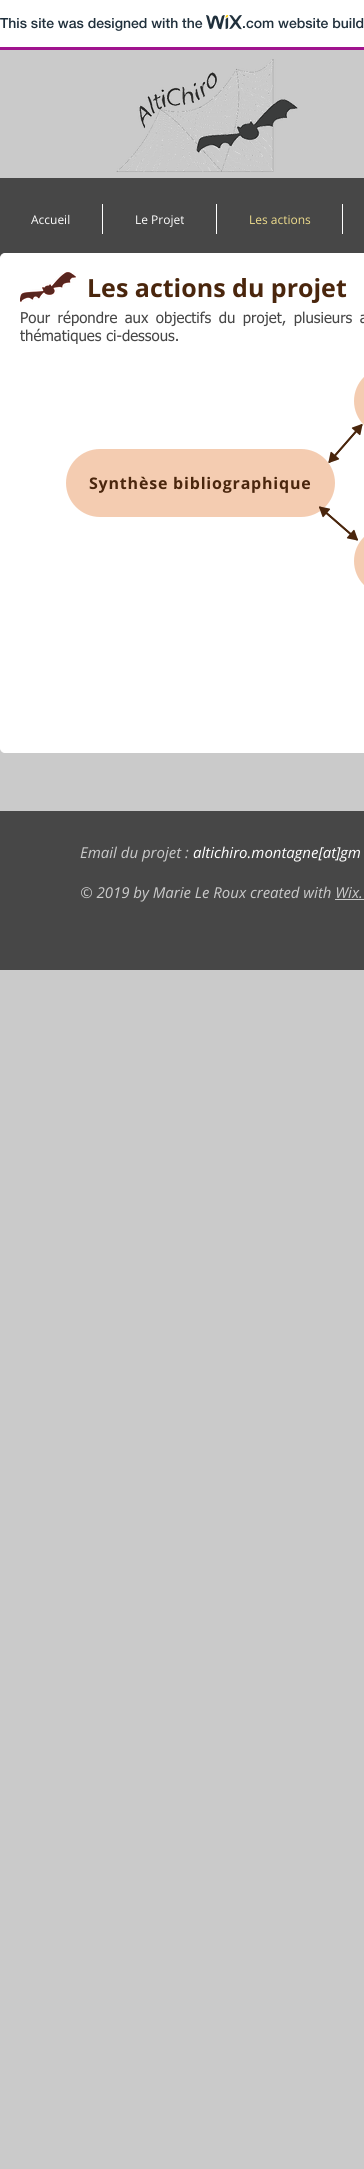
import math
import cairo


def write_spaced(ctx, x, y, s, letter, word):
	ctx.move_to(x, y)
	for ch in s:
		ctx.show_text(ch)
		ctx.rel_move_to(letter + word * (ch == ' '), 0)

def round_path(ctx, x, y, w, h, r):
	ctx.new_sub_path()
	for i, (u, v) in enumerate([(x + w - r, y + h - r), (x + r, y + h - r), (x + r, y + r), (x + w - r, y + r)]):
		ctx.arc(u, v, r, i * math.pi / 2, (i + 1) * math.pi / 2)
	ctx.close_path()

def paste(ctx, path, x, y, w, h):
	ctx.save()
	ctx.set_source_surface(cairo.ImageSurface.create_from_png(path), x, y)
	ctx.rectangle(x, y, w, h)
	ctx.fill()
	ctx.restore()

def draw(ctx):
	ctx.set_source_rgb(1, 1, 1)
	ctx.paint()
	ctx.set_source_rgb(0.627, 0.075, 0.557)
	ctx.rectangle(0, 47, 364, 3)
	ctx.fill()
	ctx.select_font_face('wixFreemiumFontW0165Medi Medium')
	ctx.set_font_size(14)
	ctx.set_source_rgb(0.125, 0.188, 0.235)
	ctx.move_to(0, 28)
	ctx.show_text('This site was designed with the')
	paste(ctx, 'media/1.png', 206, 15, 36, 15)
	ctx.move_to(242, 28)
	ctx.show_text('.com website build')
	ctx.set_source_rgb(0.792, 0.792, 0.792)
	ctx.rectangle(0, 50, 364, 2119)
	ctx.fill()
	paste(ctx, 'media/2.png', 116, 59, 182, 113)
	ctx.set_source_rgb(0.278, 0.278, 0.278)
	ctx.rectangle(0, 178, 364, 80)
	ctx.fill()
	ctx.select_font_face('Open Sans')
	ctx.set_font_size(12)
	ctx.set_source_rgb(1, 1, 1)
	ctx.move_to(31, 224)
	ctx.show_text('Accueil')
	ctx.rectangle(102, 204, 1, 30)
	ctx.fill()
	ctx.move_to(135, 224)
	ctx.show_text('Le Projet')
	ctx.rectangle(216, 204, 1, 30)
	ctx.fill()
	ctx.set_source_rgb(0.937, 0.867, 0.553)
	ctx.move_to(249, 224)
	ctx.show_text('Les actions')
	ctx.set_source_rgb(1, 1, 1)
	ctx.rectangle(342, 204, 1, 30)
	ctx.fill()
	round_path(ctx, 0.5, 253.5, 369, 499, 4.5)
	ctx.fill_preserve()
	ctx.set_line_width(1)
	ctx.stroke()
	paste(ctx, 'media/3.png', 20, 272, 56, 30)
	ctx.select_font_face('Open Sans', cairo.FONT_SLANT_NORMAL, cairo.FONT_WEIGHT_BOLD)
	ctx.set_font_size(25)
	ctx.set_source_rgb(0.29, 0.149, 0.051)
	ctx.move_to(87, 297)
	ctx.show_text('Les actions du projet')
	ctx.select_font_face('tahoma')
	ctx.set_font_size(15)
	ctx.set_source_rgb(0.275, 0.275, 0.275)
	write_spaced(ctx, 20, 323, 'Pour répondre aux objectifs du projet, plusieurs a', 0, 2.75)
	ctx.move_to(20, 341)
	ctx.show_text('thématiques ci-dessous.')
	ctx.set_source_rgb(0.957, 0.8, 0.694)
	round_path(ctx, 354, 367, 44, 68, 34)
	ctx.fill()
	round_path(ctx, 66, 449, 269, 68, 34)
	ctx.fill()
	paste(ctx, 'media/4.png', 328, 424, 35, 39)
	paste(ctx, 'media/5.png', 328, 424, 35, 39)
	ctx.select_font_face('Open Sans', cairo.FONT_SLANT_NORMAL, cairo.FONT_WEIGHT_BOLD)
	ctx.set_font_size(16)
	ctx.set_source_rgb(0.29, 0.149, 0.051)
	write_spaced(ctx, 89, 489, 'Synthèse bibliographique', 0.8, 0)
	ctx.set_source_rgb(0.957, 0.8, 0.694)
	round_path(ctx, 354, 527, 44, 68, 34)
	ctx.fill()
	paste(ctx, 'media/6.png', 319, 506, 39, 35)
	paste(ctx, 'media/7.png', 319, 506, 39, 35)
	ctx.set_source_rgb(0.278, 0.278, 0.278)
	ctx.rectangle(0, 811, 364, 159)
	ctx.fill()
	ctx.select_font_face('Open Sans', cairo.FONT_SLANT_ITALIC)
	ctx.set_font_size(15)
	ctx.set_source_rgb(0.792, 0.792, 0.792)
	ctx.move_to(80, 858)
	ctx.show_text('Email du projet :')
	ctx.set_source_rgb(1, 1, 1)
	ctx.move_to(193, 858)
	ctx.show_text('altichiro.montagne[at]gm')
	ctx.set_source_rgb(0.792, 0.792, 0.792)
	ctx.move_to(80, 898)
	ctx.show_text('© 2019 by Marie Le Roux created with Wix.')
	ctx.rectangle(335, 899, 29, 1)
	ctx.fill()


surface = cairo.ImageSurface(cairo.FORMAT_RGB24, 364, 2169)
ctx = cairo.Context(surface)
options = cairo.FontOptions()
options.set_hint_metrics(cairo.HINT_METRICS_OFF)
options.set_hint_style(cairo.HINT_STYLE_NONE)
ctx.set_font_options(options)
ctx.set_miter_limit(4)
draw(ctx)
surface.write_to_png('image.png')
